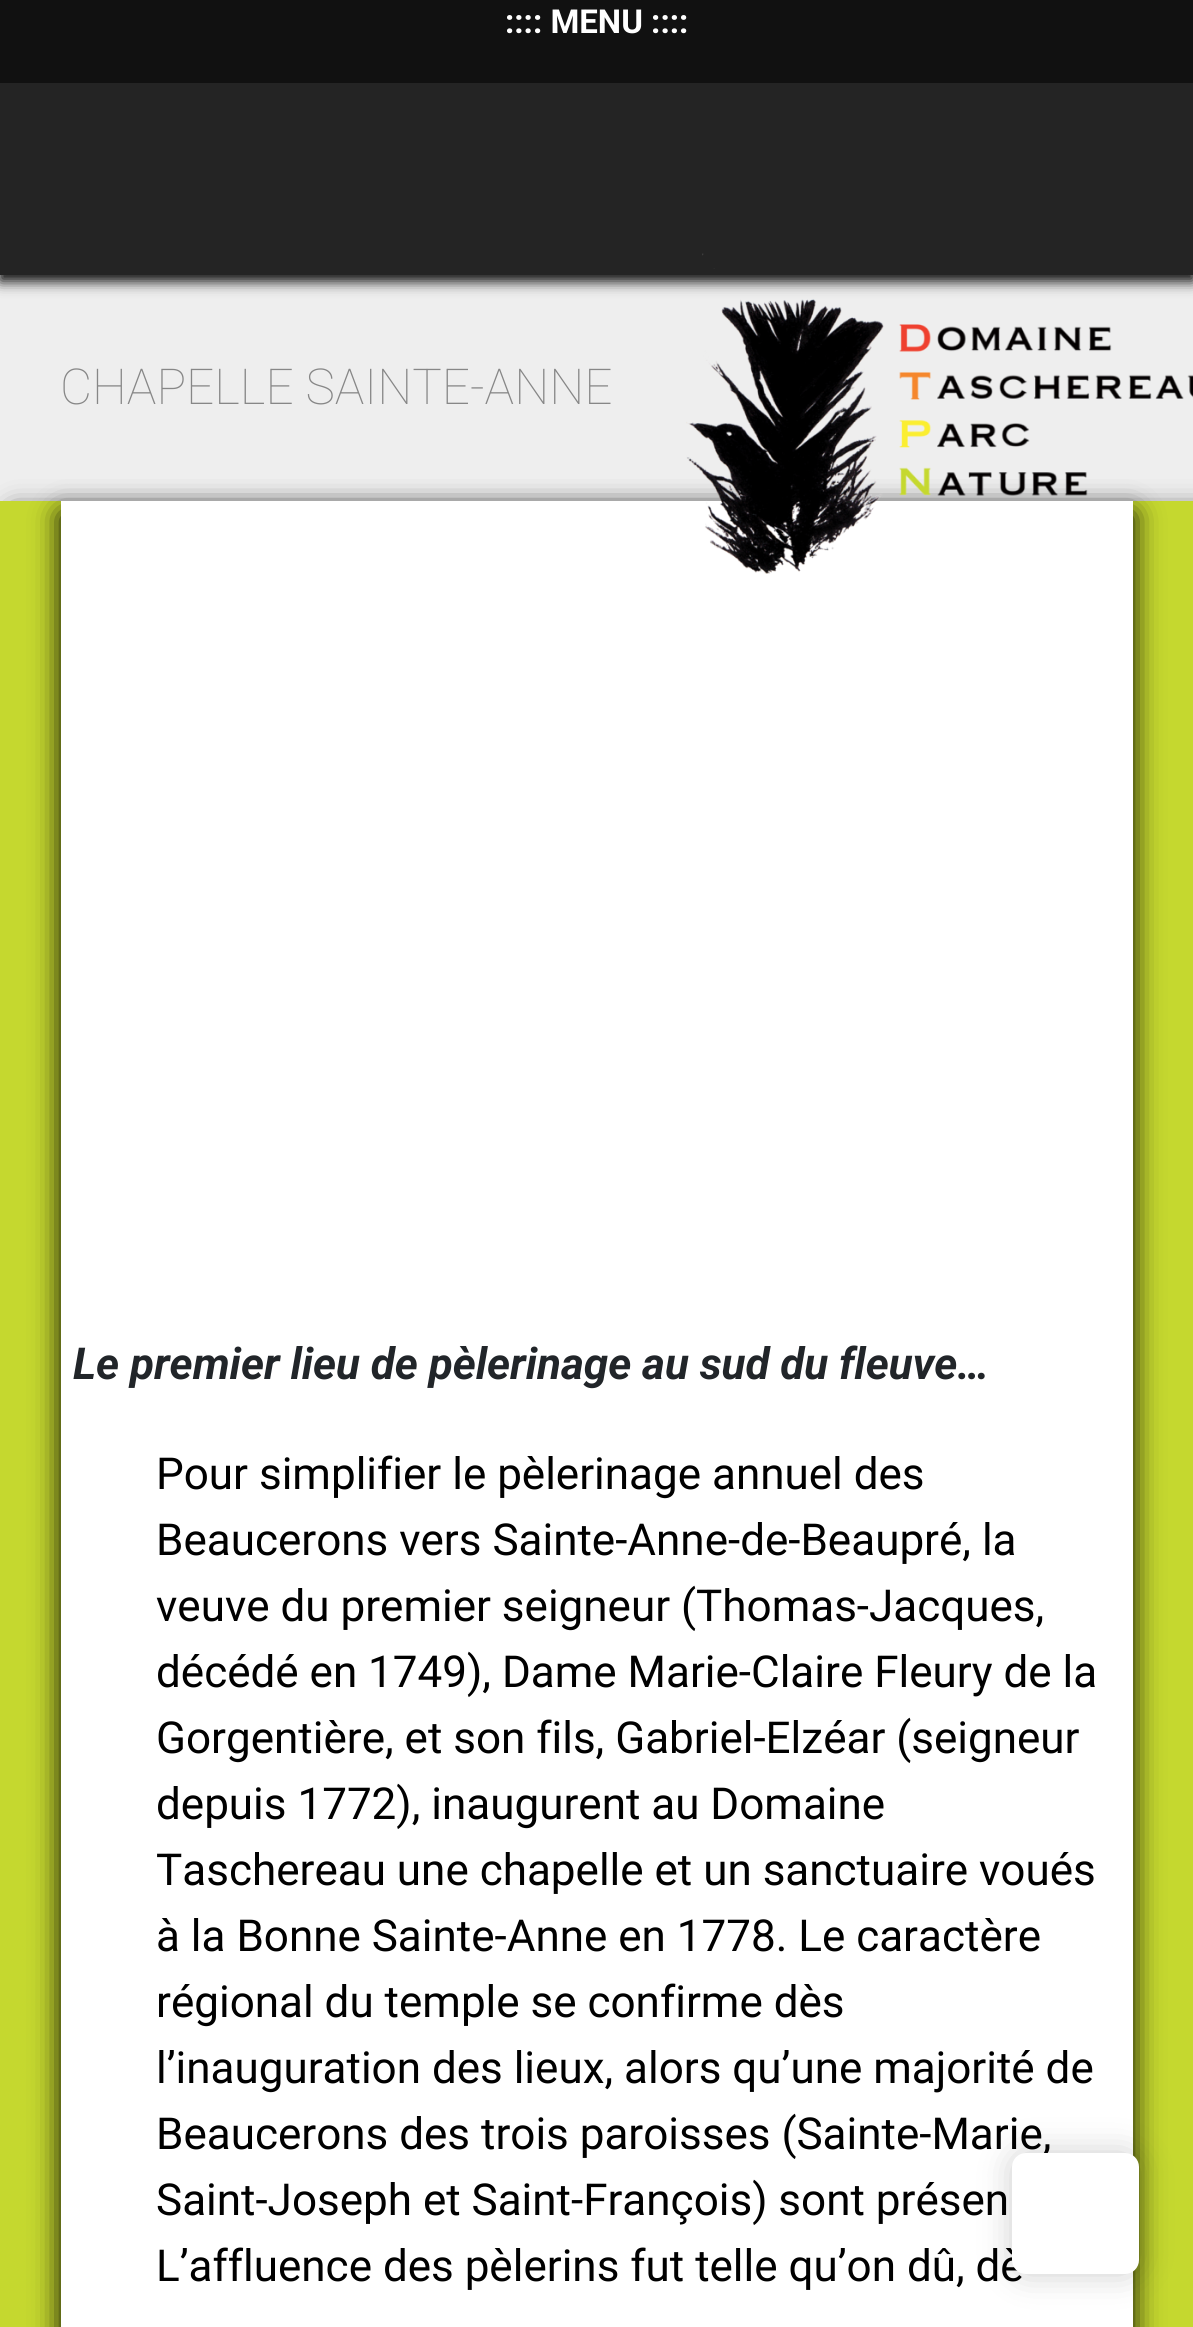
import math
import cairo


def round_path(ctx, x, y, w, h, r):
	ctx.new_sub_path()
	for i, (u, v) in enumerate([(x + w - r, y + h - r), (x + r, y + h - r), (x + r, y + r), (x + w - r, y + r)]):
		ctx.arc(u, v, r, i * math.pi / 2, (i + 1) * math.pi / 2)
	ctx.close_path()

def blur_box(ctx, x, y, w, h, r, blur, alpha):
	ctx.push_group_with_content(cairo.CONTENT_ALPHA)
	ctx.set_operator(cairo.OPERATOR_SOURCE)
	for i in range(15, -16, -2):
		e = blur * i / 6
		if min(w, h) + 2 * e > 0:
			ctx.set_source_rgba(0, 0, 0, alpha * math.erfc((i - 1) / 8.5) / 2)
			round_path(ctx, x - e, y - e, w + 2 * e, h + 2 * e, max(0, min(r + e + blur * .6, min(w, h) / 2 + e)))
			ctx.fill()
	ctx.mask(ctx.pop_group())

def paste(ctx, path, x, y, w, h):
	ctx.save()
	ctx.set_source_surface(cairo.ImageSurface.create_from_png(path), x, y)
	ctx.rectangle(x, y, w, h)
	ctx.fill()
	ctx.restore()

def draw(ctx):
	ctx.set_source_rgb(0.933, 0.933, 0.933)
	ctx.paint()
	ctx.set_source_rgb(0, 0, 0)
	blur_box(ctx, 0, 88, 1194, 193, 0, 7, 1)
	ctx.set_source_rgb(0.067, 0.067, 0.067)
	ctx.rectangle(0, 0, 1193, 83)
	ctx.fill()
	ctx.select_font_face('Roboto', cairo.FONT_SLANT_NORMAL, cairo.FONT_WEIGHT_BOLD)
	ctx.set_font_size(33)
	ctx.set_source_rgb(1, 1, 1)
	ctx.move_to(505, 33)
	ctx.show_text(':::: MENU ::::')
	ctx.set_source_rgb(0.141, 0.141, 0.141)
	ctx.rectangle(0, 83, 1193, 192)
	ctx.fill()
	ctx.select_font_face('Roboto Thin')
	ctx.set_font_size(49.5)
	ctx.set_source_rgb(0.529, 0.529, 0.529)
	ctx.move_to(60, 404)
	ctx.show_text('CHAPELLE SAINTE-ANNE')
	ctx.set_source_rgb(0, 0, 0)
	blur_box(ctx, 14, 514, 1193, 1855, 0, 14, 1)
	ctx.set_source_rgb(0.773, 0.847, 0.184)
	ctx.rectangle(0, 501, 1193, 1826)
	ctx.fill()
	ctx.set_source_rgb(0, 0, 0)
	blur_box(ctx, 61, 514, 1072, 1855, 0, 14, 1)
	ctx.set_source_rgb(1, 1, 1)
	ctx.rectangle(61, 501, 1072, 1826)
	ctx.fill()
	paste(ctx, 'media/1.png', 686, 253, 507, 321)
	ctx.select_font_face('Roboto', cairo.FONT_SLANT_ITALIC, cairo.FONT_WEIGHT_BOLD)
	ctx.set_font_size(44)
	ctx.set_source_rgb(0.129, 0.145, 0.161)
	ctx.move_to(73, 1379)
	ctx.show_text('Le premier lieu de pèlerinage au sud du fleuve…')
	ctx.select_font_face('Roboto')
	ctx.set_source_rgb(0, 0, 0)
	for x, y, s in [
		(156, 1489, 'Pour simplifier le pèlerinage annuel des'),
		(156, 1555, 'Beaucerons vers Sainte-Anne-de-Beaupré, la'),
		(156, 1621, 'veuve du premier seigneur (Thomas-Jacques,'),
		(156, 1687, 'décédé en 1749), Dame Marie-Claire Fleury de la'),
		(156, 1753, 'Gorgentière, et son fils, Gabriel-Elzéar (seigneur'),
		(156, 1819, 'depuis 1772), inaugurent au Domaine'),
		(156, 1885, 'Taschereau une chapelle et un sanctuaire voués'),
		(156, 1951, 'à la Bonne Sainte-Anne en 1778. Le caractère'),
		(156, 2017, 'régional du temple se confirme dès'),
		(156, 2083, 'l’inauguration des lieux, alors qu’une majorité de'),
		(156, 2149, 'Beaucerons des trois paroisses (Sainte-Marie,'),
		(156, 2215, 'Saint-Joseph et Saint-François) sont présen'),
		(156, 2281, 'L’affluence des pèlerins fut telle qu’on dû, dè'),
	]:
		ctx.move_to(x, y)
		ctx.show_text(s)
	ctx.set_source_rgb(0, 0, 0)
	blur_box(ctx, 1012, 2153, 127, 121, 14, 16.5, 0.2)
	ctx.set_source_rgb(1, 1, 1)
	round_path(ctx, 1012, 2153, 127, 121, 14)
	ctx.fill()


surface = cairo.ImageSurface(cairo.FORMAT_RGB24, 1193, 2327)
ctx = cairo.Context(surface)
options = cairo.FontOptions()
options.set_hint_metrics(cairo.HINT_METRICS_OFF)
options.set_hint_style(cairo.HINT_STYLE_NONE)
ctx.set_font_options(options)
ctx.set_miter_limit(4)
draw(ctx)
surface.write_to_png('image.png')
